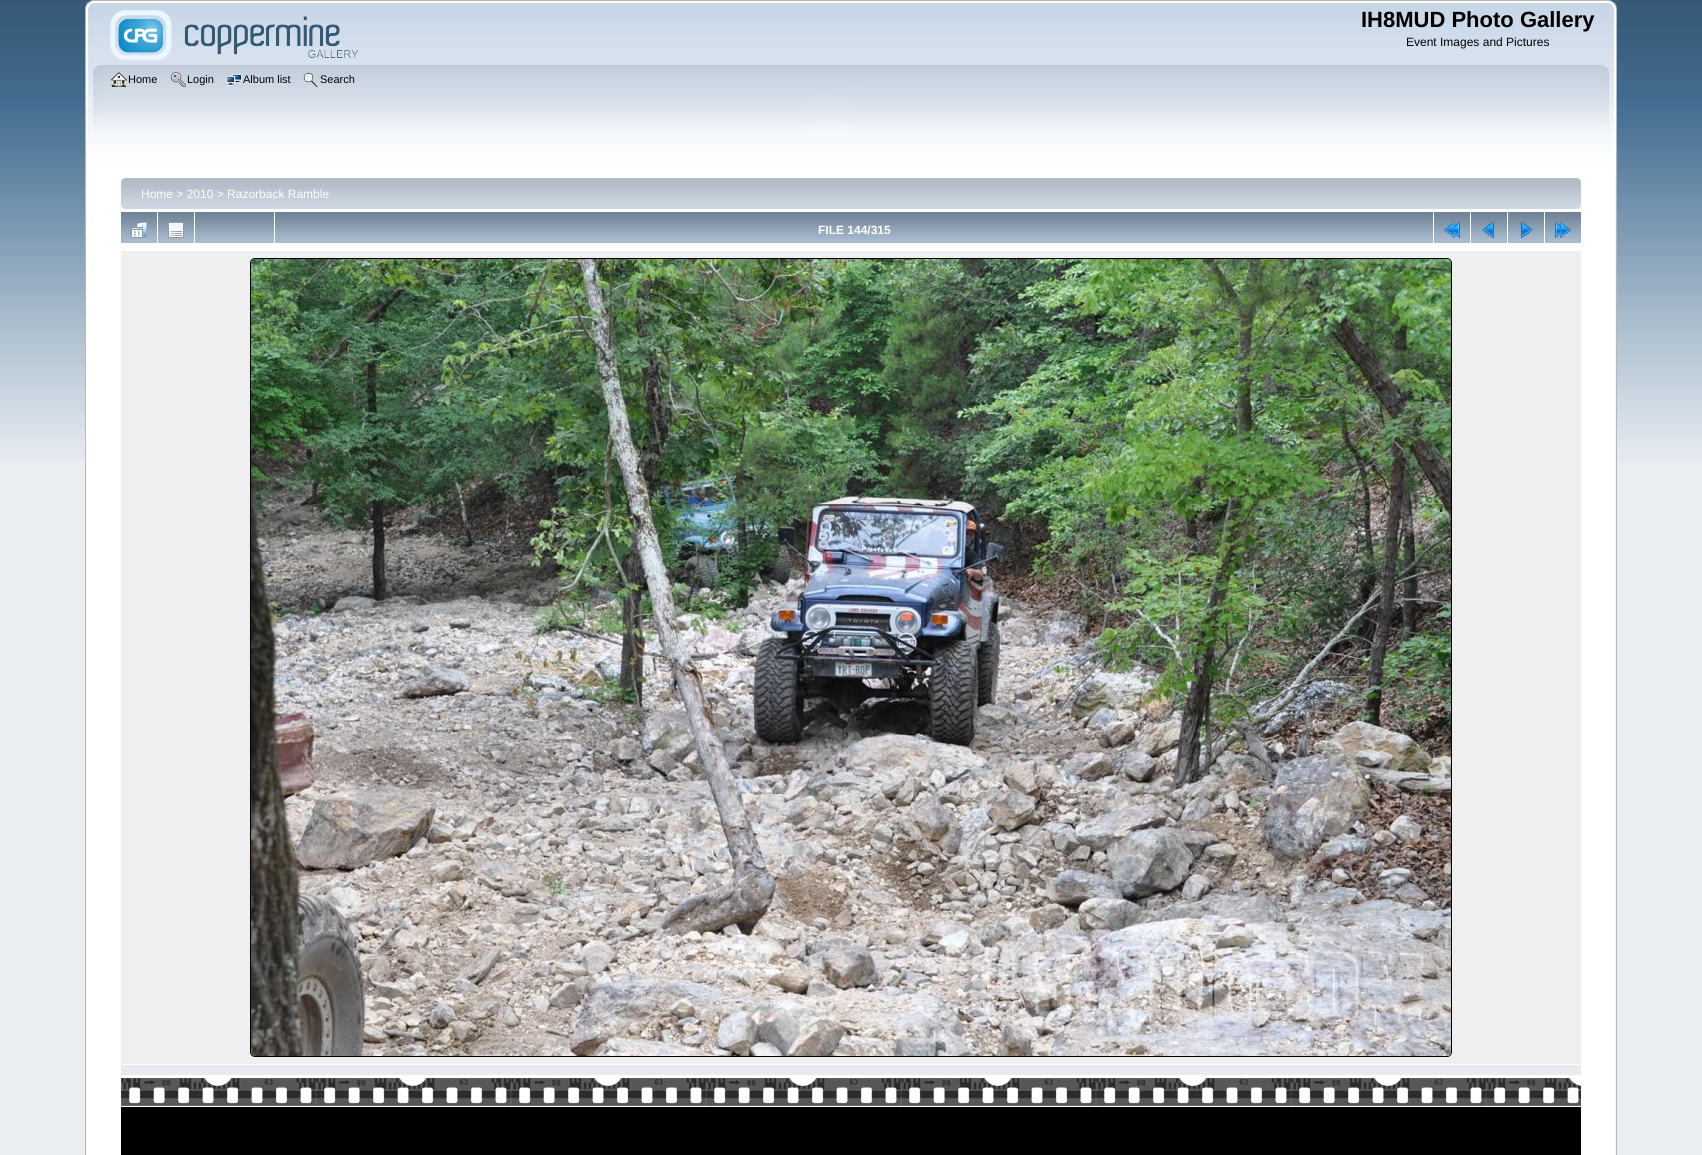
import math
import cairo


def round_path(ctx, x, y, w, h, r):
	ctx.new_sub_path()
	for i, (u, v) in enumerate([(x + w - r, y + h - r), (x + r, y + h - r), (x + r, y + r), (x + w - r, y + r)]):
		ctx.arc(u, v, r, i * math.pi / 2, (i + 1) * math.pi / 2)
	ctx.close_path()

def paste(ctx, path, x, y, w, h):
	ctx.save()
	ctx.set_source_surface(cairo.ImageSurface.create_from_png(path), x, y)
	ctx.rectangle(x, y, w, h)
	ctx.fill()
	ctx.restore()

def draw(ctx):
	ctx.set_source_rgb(0.914, 0.933, 0.949)
	ctx.paint()
	paste(ctx, 'media/1.png', 0, 0, 1702, 462)
	paste(ctx, 'media/2.png', 85, 0, 1524, 65)
	paste(ctx, 'media/3.png', 1609, 0, 8, 65)
	paste(ctx, 'media/4.png', 110, 10, 248, 50)
	ctx.select_font_face('Liberation Sans', cairo.FONT_SLANT_NORMAL, cairo.FONT_WEIGHT_BOLD)
	ctx.set_font_size(22)
	ctx.set_source_rgb(0, 0, 0)
	ctx.move_to(1361, 27)
	ctx.show_text('IH8MUD Photo Gallery')
	ctx.select_font_face('Liberation Sans')
	ctx.set_font_size(12)
	ctx.move_to(1406, 46)
	ctx.show_text('Event Images and Pictures')
	paste(ctx, 'media/5.png', 85, 65, 1517, 110)
	paste(ctx, 'media/6.png', 1602, 65, 15, 110)
	paste(ctx, 'media/7.png', 111, 72, 16, 16)
	ctx.set_font_size(11)
	ctx.move_to(128, 83)
	ctx.show_text('Home')
	paste(ctx, 'media/8.png', 171, 72, 15, 15)
	ctx.move_to(187, 83)
	ctx.show_text('Login')
	paste(ctx, 'media/9.png', 226, 74, 16, 12)
	ctx.move_to(243, 83)
	ctx.show_text('Album list')
	paste(ctx, 'media/10.png', 303, 72, 16, 15)
	ctx.move_to(320, 83)
	ctx.show_text('Search')
	ctx.set_source_rgb(1, 1, 1)
	ctx.rectangle(86, 175, 1529, 980)
	ctx.fill()
	ctx.set_source_rgb(0.718, 0.718, 0.718)
	ctx.rectangle(85, 175, 1, 980)
	ctx.fill()
	paste(ctx, 'media/11.png', 1615, 175, 2, 980)
	paste(ctx, 'media/12.png', 121, 178, 1455, 31)
	paste(ctx, 'media/13.png', 1576, 178, 5, 31)
	ctx.set_font_size(12)
	ctx.set_source_rgb(1, 1, 1)
	ctx.move_to(141, 198)
	ctx.show_text('Home > 2010 > Razorback Ramble')
	paste(ctx, 'media/14.png', 121, 212, 36, 31)
	paste(ctx, 'media/15.png', 131, 222, 16, 16)
	paste(ctx, 'media/14.png', 158, 212, 36, 31)
	paste(ctx, 'media/16.png', 168, 222, 16, 16)
	paste(ctx, 'media/17.png', 195, 212, 79, 31)
	paste(ctx, 'media/18.png', 275, 212, 1158, 31)
	ctx.select_font_face('Liberation Sans', cairo.FONT_SLANT_NORMAL, cairo.FONT_WEIGHT_BOLD)
	ctx.move_to(818, 234)
	ctx.show_text('FILE 144/315')
	paste(ctx, 'media/14.png', 1434, 212, 36, 31)
	paste(ctx, 'media/19.png', 1444, 222, 16, 16)
	paste(ctx, 'media/14.png', 1471, 212, 36, 31)
	paste(ctx, 'media/20.png', 1482, 222, 12, 16)
	paste(ctx, 'media/14.png', 1508, 212, 36, 31)
	paste(ctx, 'media/21.png', 1521, 222, 12, 16)
	paste(ctx, 'media/14.png', 1545, 212, 36, 31)
	paste(ctx, 'media/22.png', 1555, 222, 16, 16)
	ctx.set_source_rgb(0.937, 0.937, 0.937)
	ctx.rectangle(121, 251, 1460, 813)
	ctx.fill()
	round_path(ctx, 250.5, 258.5, 1201, 798, 4.5)
	ctx.set_source_rgb(0, 0, 0)
	ctx.set_line_width(1)
	ctx.stroke()
	paste(ctx, 'media/23.png', 251, 259, 1200, 797)
	ctx.set_source_rgb(0.906, 0.918, 0.937)
	ctx.rectangle(121, 1065, 1460, 10)
	ctx.fill()
	paste(ctx, 'media/24.png', 121, 1078, 1460, 28)
	ctx.set_source_rgb(0, 0, 0)
	ctx.rectangle(121, 1107, 1460, 48)
	ctx.fill()


surface = cairo.ImageSurface(cairo.FORMAT_RGB24, 1702, 1155)
ctx = cairo.Context(surface)
options = cairo.FontOptions()
options.set_hint_metrics(cairo.HINT_METRICS_OFF)
options.set_hint_style(cairo.HINT_STYLE_NONE)
ctx.set_font_options(options)
ctx.set_miter_limit(4)
draw(ctx)
surface.write_to_png('image.png')
